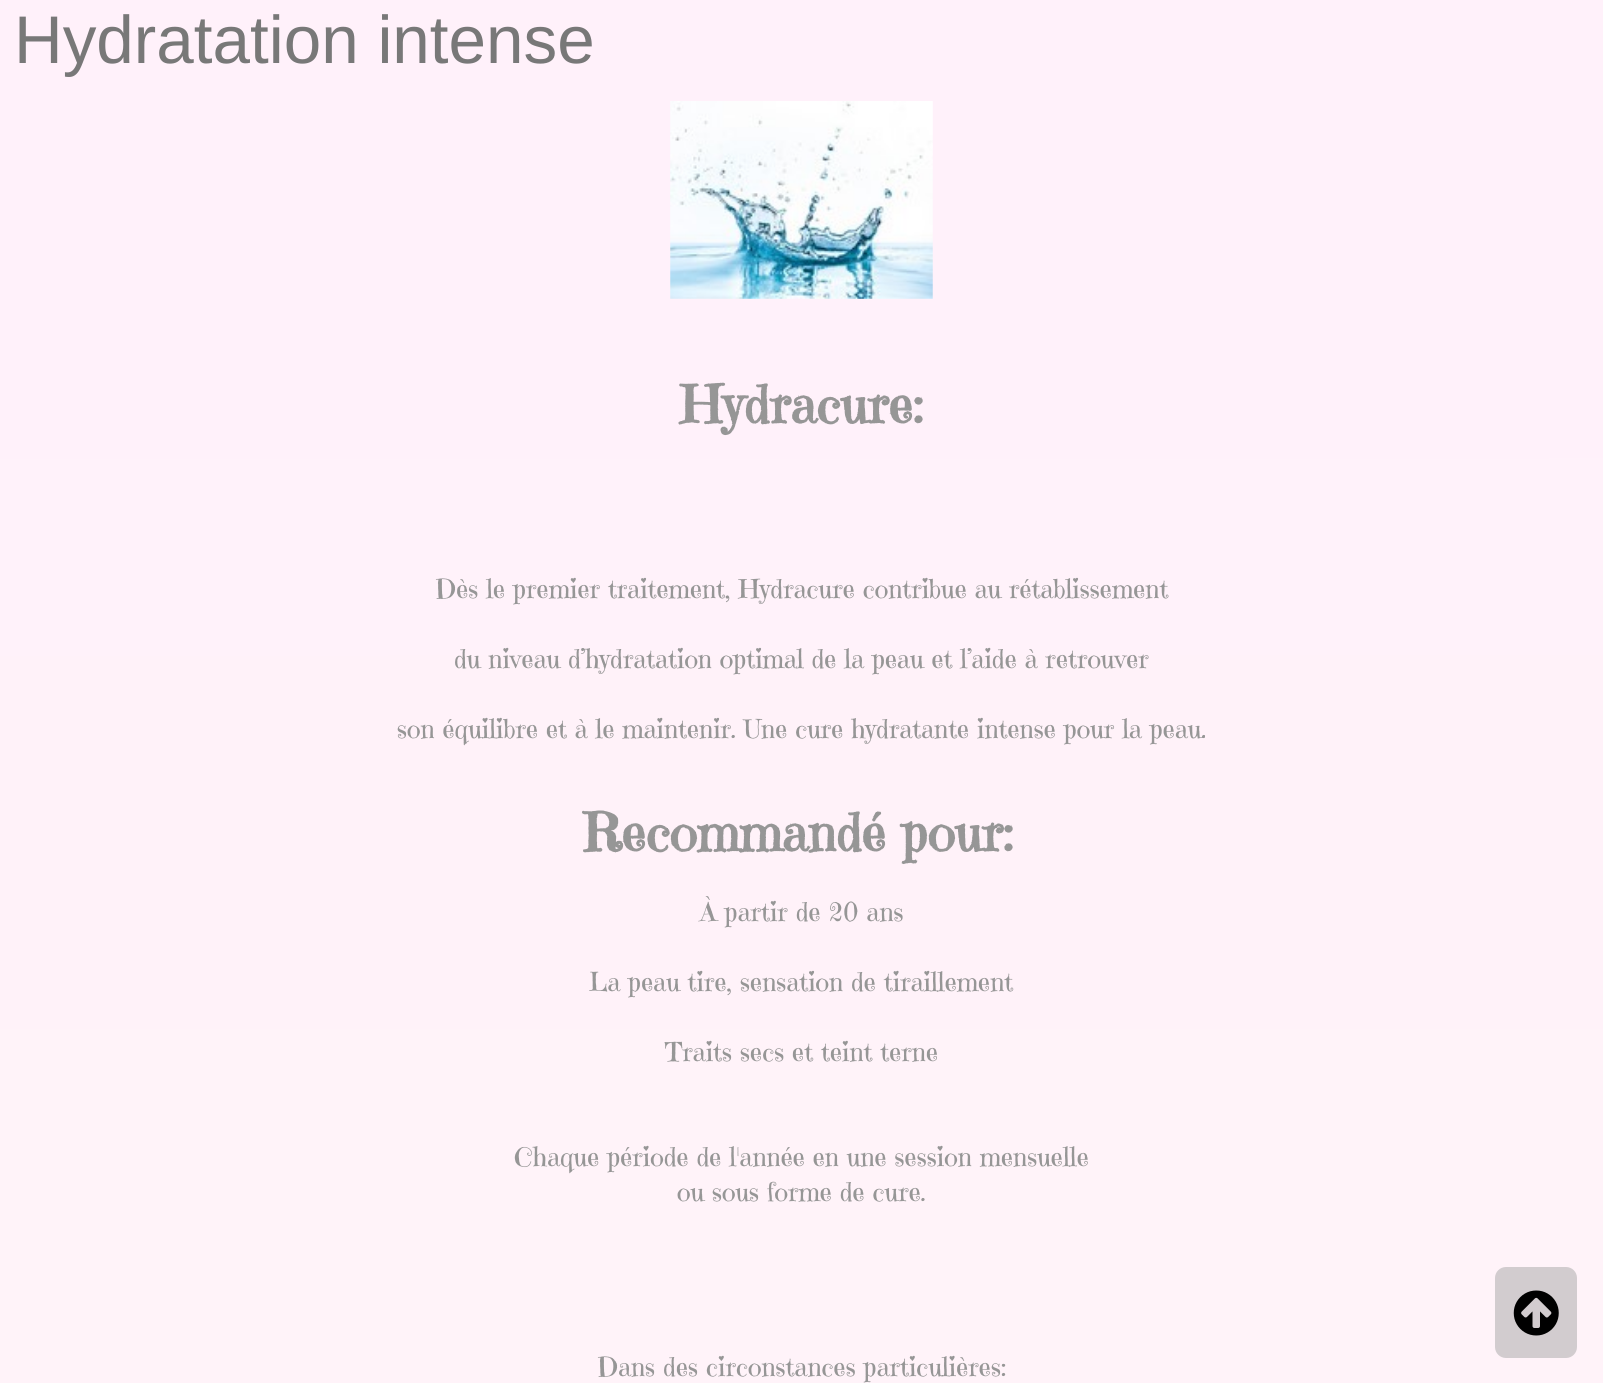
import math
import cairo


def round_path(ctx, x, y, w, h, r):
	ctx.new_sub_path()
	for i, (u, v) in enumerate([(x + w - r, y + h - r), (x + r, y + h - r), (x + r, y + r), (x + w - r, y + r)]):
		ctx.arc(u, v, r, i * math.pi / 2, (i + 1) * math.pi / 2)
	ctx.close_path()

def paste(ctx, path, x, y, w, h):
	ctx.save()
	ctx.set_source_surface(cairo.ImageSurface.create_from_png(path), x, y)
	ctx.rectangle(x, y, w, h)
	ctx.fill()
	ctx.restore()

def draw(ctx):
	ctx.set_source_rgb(1, 1, 1)
	ctx.paint()
	gradient = cairo.LinearGradient(801, -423, 802, 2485)
	gradient.add_color_stop_rgba(0, 1, 0.941, 0.984, 1)
	gradient.add_color_stop_rgba(1, 1, 0.961, 0.969, 1)
	ctx.set_source(gradient)
	ctx.rectangle(0, 0, 1603, 1383)
	ctx.fill()
	ctx.select_font_face('Liberation Sans')
	ctx.set_font_size(67.4)
	ctx.set_source_rgb(0.471, 0.471, 0.471)
	ctx.move_to(14, 63)
	ctx.show_text('Hydratation intense')
	paste(ctx, 'media/1.png', 670, 101, 263, 198)
	ctx.select_font_face('Emilys Candy', cairo.FONT_SLANT_NORMAL, cairo.FONT_WEIGHT_BOLD)
	ctx.set_font_size(52.5)
	ctx.set_source_rgb(0.588, 0.588, 0.588)
	ctx.move_to(680, 423)
	ctx.show_text('Hydracure:')
	ctx.select_font_face('Emilys Candy')
	ctx.set_font_size(26.25)
	for x, y, s in [
		(435, 598, 'Dès le premier traitement, Hydracure contribue au rétablissement'),
		(454, 668, 'du niveau d’hydratation optimal de la peau et l’aide à retrouver'),
		(397, 738, 'son équilibre et à le maintenir. Une cure hydratante intense pour la peau.'),
	]:
		ctx.move_to(x, y)
		ctx.show_text(s)
	ctx.select_font_face('Emilys Candy', cairo.FONT_SLANT_NORMAL, cairo.FONT_WEIGHT_BOLD)
	ctx.set_font_size(52.5)
	ctx.move_to(583, 851)
	ctx.show_text('Recommandé pour:')
	ctx.select_font_face('Emilys Candy')
	ctx.set_font_size(26.25)
	for x, y, s in [
		(700, 921, 'À partir de 20 ans'),
		(589, 991, 'La peau tire, sensation de tiraillement'),
		(665, 1061, 'Traits secs et teint terne'),
		(514, 1166, 'Chaque période de l\'année en une session mensuelle'),
		(677, 1201, 'ou sous forme de cure.'),
		(597, 1376, 'Dans des circonstances particulières:'),
	]:
		ctx.move_to(x, y)
		ctx.show_text(s)
	ctx.set_source_rgb(0.824, 0.8, 0.812)
	round_path(ctx, 1495, 1267, 82, 91, 11)
	ctx.fill()
	paste(ctx, 'media/2.png', 1513, 1290, 46, 46)


surface = cairo.ImageSurface(cairo.FORMAT_RGB24, 1603, 1383)
ctx = cairo.Context(surface)
options = cairo.FontOptions()
options.set_hint_metrics(cairo.HINT_METRICS_OFF)
options.set_hint_style(cairo.HINT_STYLE_NONE)
ctx.set_font_options(options)
ctx.set_miter_limit(4)
draw(ctx)
surface.write_to_png('image.png')
